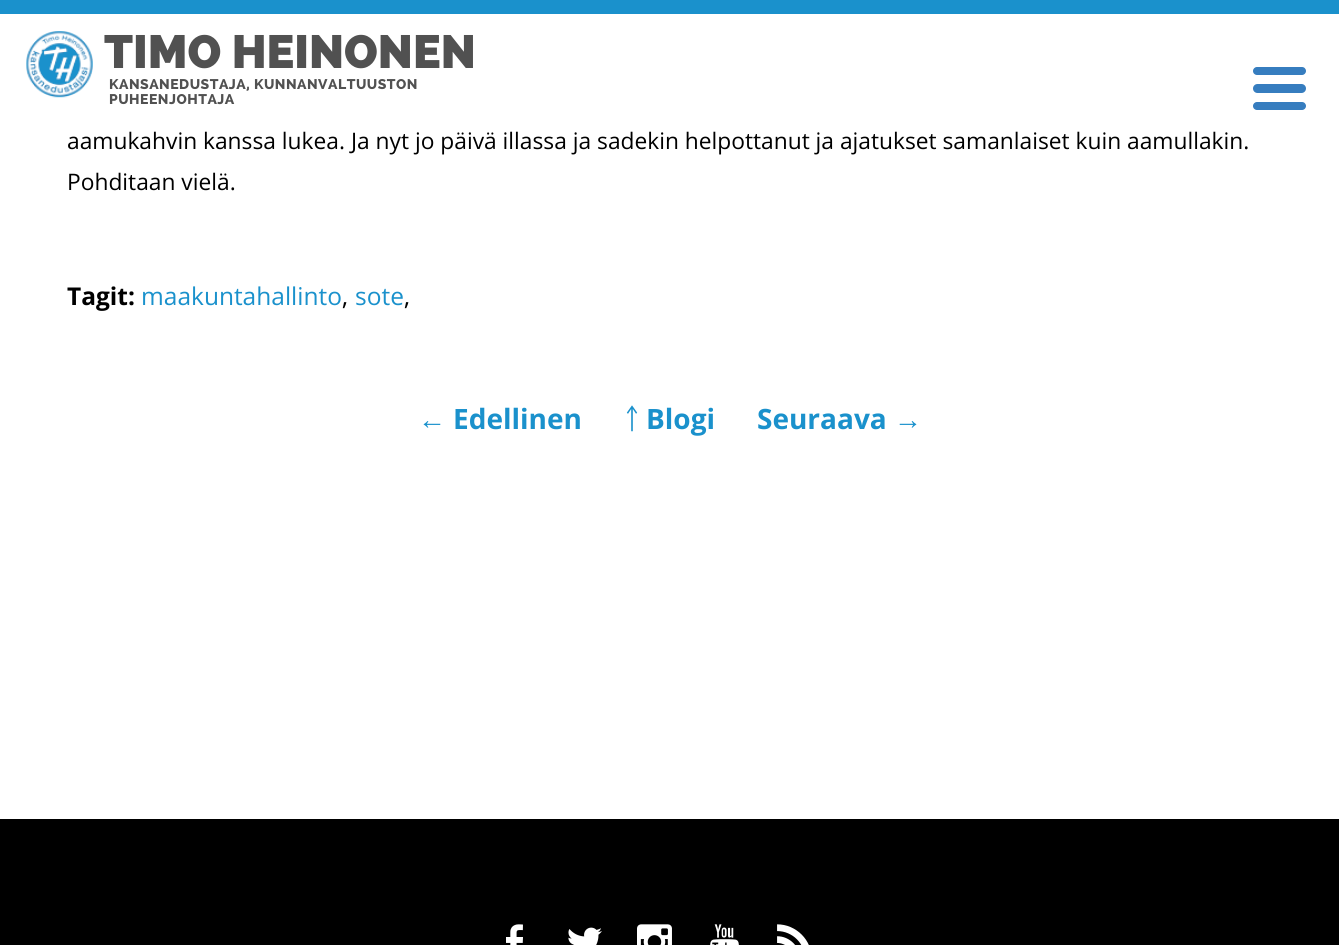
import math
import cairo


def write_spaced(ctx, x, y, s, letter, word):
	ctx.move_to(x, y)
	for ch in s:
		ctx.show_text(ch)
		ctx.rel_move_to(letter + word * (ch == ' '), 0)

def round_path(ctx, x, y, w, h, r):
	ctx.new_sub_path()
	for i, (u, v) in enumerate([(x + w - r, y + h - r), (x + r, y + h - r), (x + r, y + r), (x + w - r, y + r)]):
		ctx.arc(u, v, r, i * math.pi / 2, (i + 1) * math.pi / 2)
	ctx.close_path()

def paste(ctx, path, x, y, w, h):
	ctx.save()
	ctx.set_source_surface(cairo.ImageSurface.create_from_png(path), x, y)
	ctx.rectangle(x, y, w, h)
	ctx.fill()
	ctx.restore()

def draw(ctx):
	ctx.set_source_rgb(1, 1, 1)
	ctx.paint()
	ctx.set_source_rgb(0.102, 0.569, 0.8)
	ctx.rectangle(0, 0, 1339, 14)
	ctx.fill()
	paste(ctx, 'media/1.png', 26, 31, 67, 67)
	ctx.select_font_face('Raleway Black')
	ctx.set_font_size(46.5)
	ctx.set_source_rgb(0.318, 0.318, 0.318)
	ctx.move_to(104, 68)
	ctx.show_text('TIMO HEINONEN')
	ctx.select_font_face('Raleway ExtraBold')
	ctx.set_font_size(14)
	write_spaced(ctx, 109, 89, 'KANSANEDUSTAJA, KUNNANVALTUUSTON', 0.5, 0)
	write_spaced(ctx, 109, 104, 'PUHEENJOHTAJA', 0.5, 0)
	ctx.set_source_rgb(0.212, 0.49, 0.749)
	round_path(ctx, 1253, 84, 53, 9, 4.5)
	ctx.fill()
	round_path(ctx, 1253, 67, 53, 8, 4)
	ctx.fill()
	round_path(ctx, 1253, 102, 53, 8, 4)
	ctx.fill()
	ctx.select_font_face('Open Sans')
	ctx.set_font_size(22.75)
	ctx.set_source_rgb(0, 0, 0)
	ctx.move_to(67, 149)
	ctx.show_text('aamukahvin kanssa lukea. Ja nyt jo päivä illassa ja sadekin helpottanut ja ajatukset samanlaiset kuin aamullakin.')
	ctx.move_to(67, 190)
	ctx.show_text('Pohditaan vielä.')
	ctx.select_font_face('Open Sans', cairo.FONT_SLANT_NORMAL, cairo.FONT_WEIGHT_BOLD)
	ctx.set_font_size(24.5)
	ctx.move_to(67, 305)
	ctx.show_text('Tagit:')
	ctx.select_font_face('Open Sans')
	ctx.set_source_rgb(0.102, 0.569, 0.8)
	ctx.move_to(141, 305)
	ctx.show_text('maakuntahallinto')
	ctx.set_source_rgb(0, 0, 0)
	ctx.move_to(342, 305)
	ctx.show_text(',')
	ctx.set_source_rgb(0.102, 0.569, 0.8)
	ctx.move_to(355, 305)
	ctx.show_text('sote')
	ctx.set_source_rgb(0, 0, 0)
	ctx.move_to(404, 305)
	ctx.show_text(',')
	ctx.select_font_face('Liberation Serif')
	ctx.set_font_size(28)
	ctx.set_source_rgb(0.102, 0.569, 0.8)
	ctx.move_to(418, 429)
	ctx.show_text('←')
	ctx.select_font_face('Open Sans', cairo.FONT_SLANT_NORMAL, cairo.FONT_WEIGHT_BOLD)
	ctx.move_to(453, 429)
	ctx.show_text('Edellinen')
	ctx.select_font_face('Chiron Hei HK')
	ctx.move_to(625, 429)
	ctx.show_text('￪')
	ctx.select_font_face('Open Sans', cairo.FONT_SLANT_NORMAL, cairo.FONT_WEIGHT_BOLD)
	ctx.move_to(646, 429)
	ctx.show_text('Blogi')
	ctx.move_to(757, 429)
	ctx.show_text('Seuraava')
	ctx.select_font_face('Liberation Serif')
	ctx.move_to(894, 429)
	ctx.show_text('→')
	ctx.set_source_rgb(0, 0, 0)
	ctx.rectangle(0, 819, 1339, 126)
	ctx.fill()
	paste(ctx, 'media/2.png', 506, 924, 17, 21)
	paste(ctx, 'media/3.png', 568, 927, 34, 18)
	paste(ctx, 'media/4.png', 637, 924, 35, 21)
	paste(ctx, 'media/5.png', 710, 924, 29, 21)
	paste(ctx, 'media/6.png', 777, 924, 32, 21)


surface = cairo.ImageSurface(cairo.FORMAT_RGB24, 1339, 945)
ctx = cairo.Context(surface)
options = cairo.FontOptions()
options.set_hint_metrics(cairo.HINT_METRICS_OFF)
options.set_hint_style(cairo.HINT_STYLE_NONE)
ctx.set_font_options(options)
ctx.set_miter_limit(4)
draw(ctx)
surface.write_to_png('image.png')
